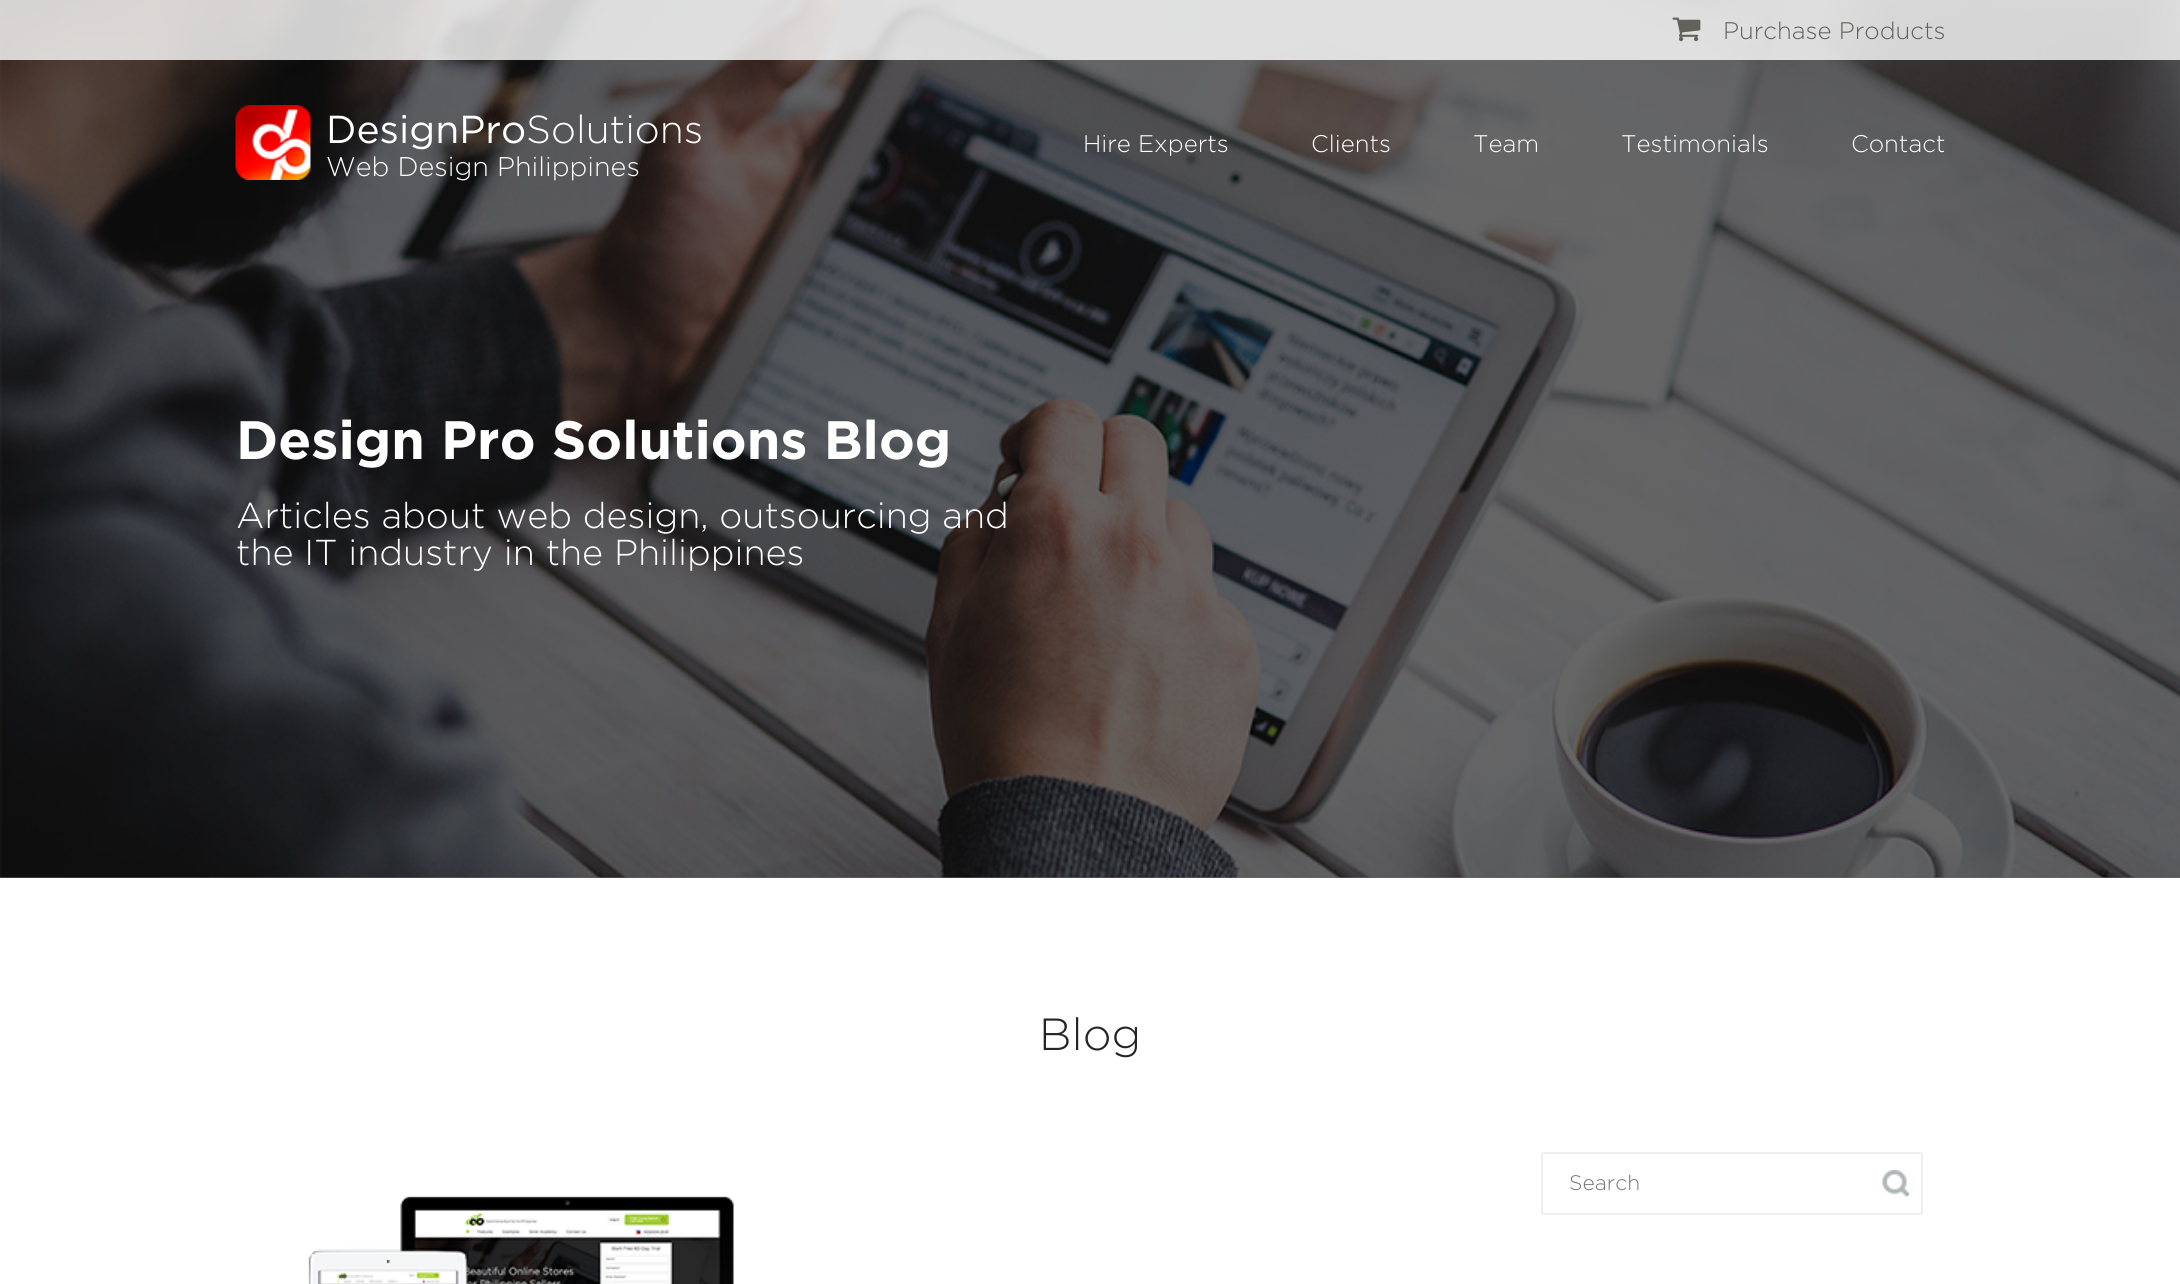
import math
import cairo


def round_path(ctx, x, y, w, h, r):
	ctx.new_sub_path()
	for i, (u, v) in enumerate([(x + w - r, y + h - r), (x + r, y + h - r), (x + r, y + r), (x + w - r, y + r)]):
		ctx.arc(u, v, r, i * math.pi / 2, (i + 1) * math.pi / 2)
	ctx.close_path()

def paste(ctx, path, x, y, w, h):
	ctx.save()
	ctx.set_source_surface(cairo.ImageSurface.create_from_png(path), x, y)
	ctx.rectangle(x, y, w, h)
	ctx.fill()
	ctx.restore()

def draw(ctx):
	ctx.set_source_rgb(1, 1, 1)
	ctx.paint()
	ctx.set_source_rgb(0.4, 0.4, 0.4)
	ctx.rectangle(0, 877, 2180, 1)
	ctx.fill()
	paste(ctx, 'media/1.png', 0, 0, 2180, 878)
	ctx.set_source_rgba(1, 1, 1, 0.8)
	ctx.rectangle(0, 0, 2180, 60)
	ctx.fill()
	paste(ctx, 'media/2.png', 1672, 17, 29, 25)
	ctx.select_font_face('Gotham Light')
	ctx.set_font_size(24)
	ctx.set_source_rgb(0.388, 0.38, 0.349)
	ctx.move_to(1723, 39)
	ctx.show_text('Purchase Products')
	paste(ctx, 'media/3.png', 235, 105, 76, 75)
	ctx.select_font_face('Gotham')
	ctx.set_font_size(39)
	ctx.set_source_rgb(1, 1, 1)
	ctx.move_to(326, 143)
	ctx.show_text('DesignPro')
	ctx.select_font_face('Gotham Light')
	ctx.move_to(526, 143)
	ctx.show_text('Solutions')
	ctx.set_font_size(27)
	ctx.move_to(326, 176)
	ctx.show_text('Web Design Philippines')
	ctx.set_font_size(24)
	for x, y, s in [
		(1083, 152, 'Hire Experts'),
		(1311, 152, 'Clients'),
		(1473, 152, 'Team'),
		(1621, 152, 'Testimonials'),
		(1851, 152, 'Contact'),
	]:
		ctx.move_to(x, y)
		ctx.show_text(s)
	ctx.select_font_face('Gotham', cairo.FONT_SLANT_NORMAL, cairo.FONT_WEIGHT_BOLD)
	ctx.set_font_size(54)
	ctx.move_to(236, 459)
	ctx.show_text('Design Pro Solutions Blog')
	ctx.select_font_face('Gotham Light')
	ctx.set_font_size(36)
	ctx.move_to(236, 528)
	ctx.show_text('Articles about web design, outsourcing and')
	ctx.move_to(236, 565)
	ctx.show_text('the IT industry in the Philippines')
	ctx.set_font_size(45)
	ctx.set_source_rgb(0.145, 0.149, 0.137)
	ctx.move_to(1039, 1050)
	ctx.show_text('Blog')
	round_path(ctx, 1542, 1153, 380, 61, 2)
	ctx.set_source_rgb(0.933, 0.933, 0.933)
	ctx.stroke()
	ctx.set_font_size(21)
	ctx.set_source_rgb(0.459, 0.459, 0.459)
	ctx.move_to(1569, 1190)
	ctx.show_text('Search')
	paste(ctx, 'media/4.png', 1882, 1170, 28, 27)
	paste(ctx, 'media/5.png', 308, 1196, 426, 88)


surface = cairo.ImageSurface(cairo.FORMAT_RGB24, 2180, 1284)
ctx = cairo.Context(surface)
options = cairo.FontOptions()
options.set_hint_metrics(cairo.HINT_METRICS_OFF)
options.set_hint_style(cairo.HINT_STYLE_NONE)
ctx.set_font_options(options)
ctx.set_miter_limit(4)
draw(ctx)
surface.write_to_png('image.png')
